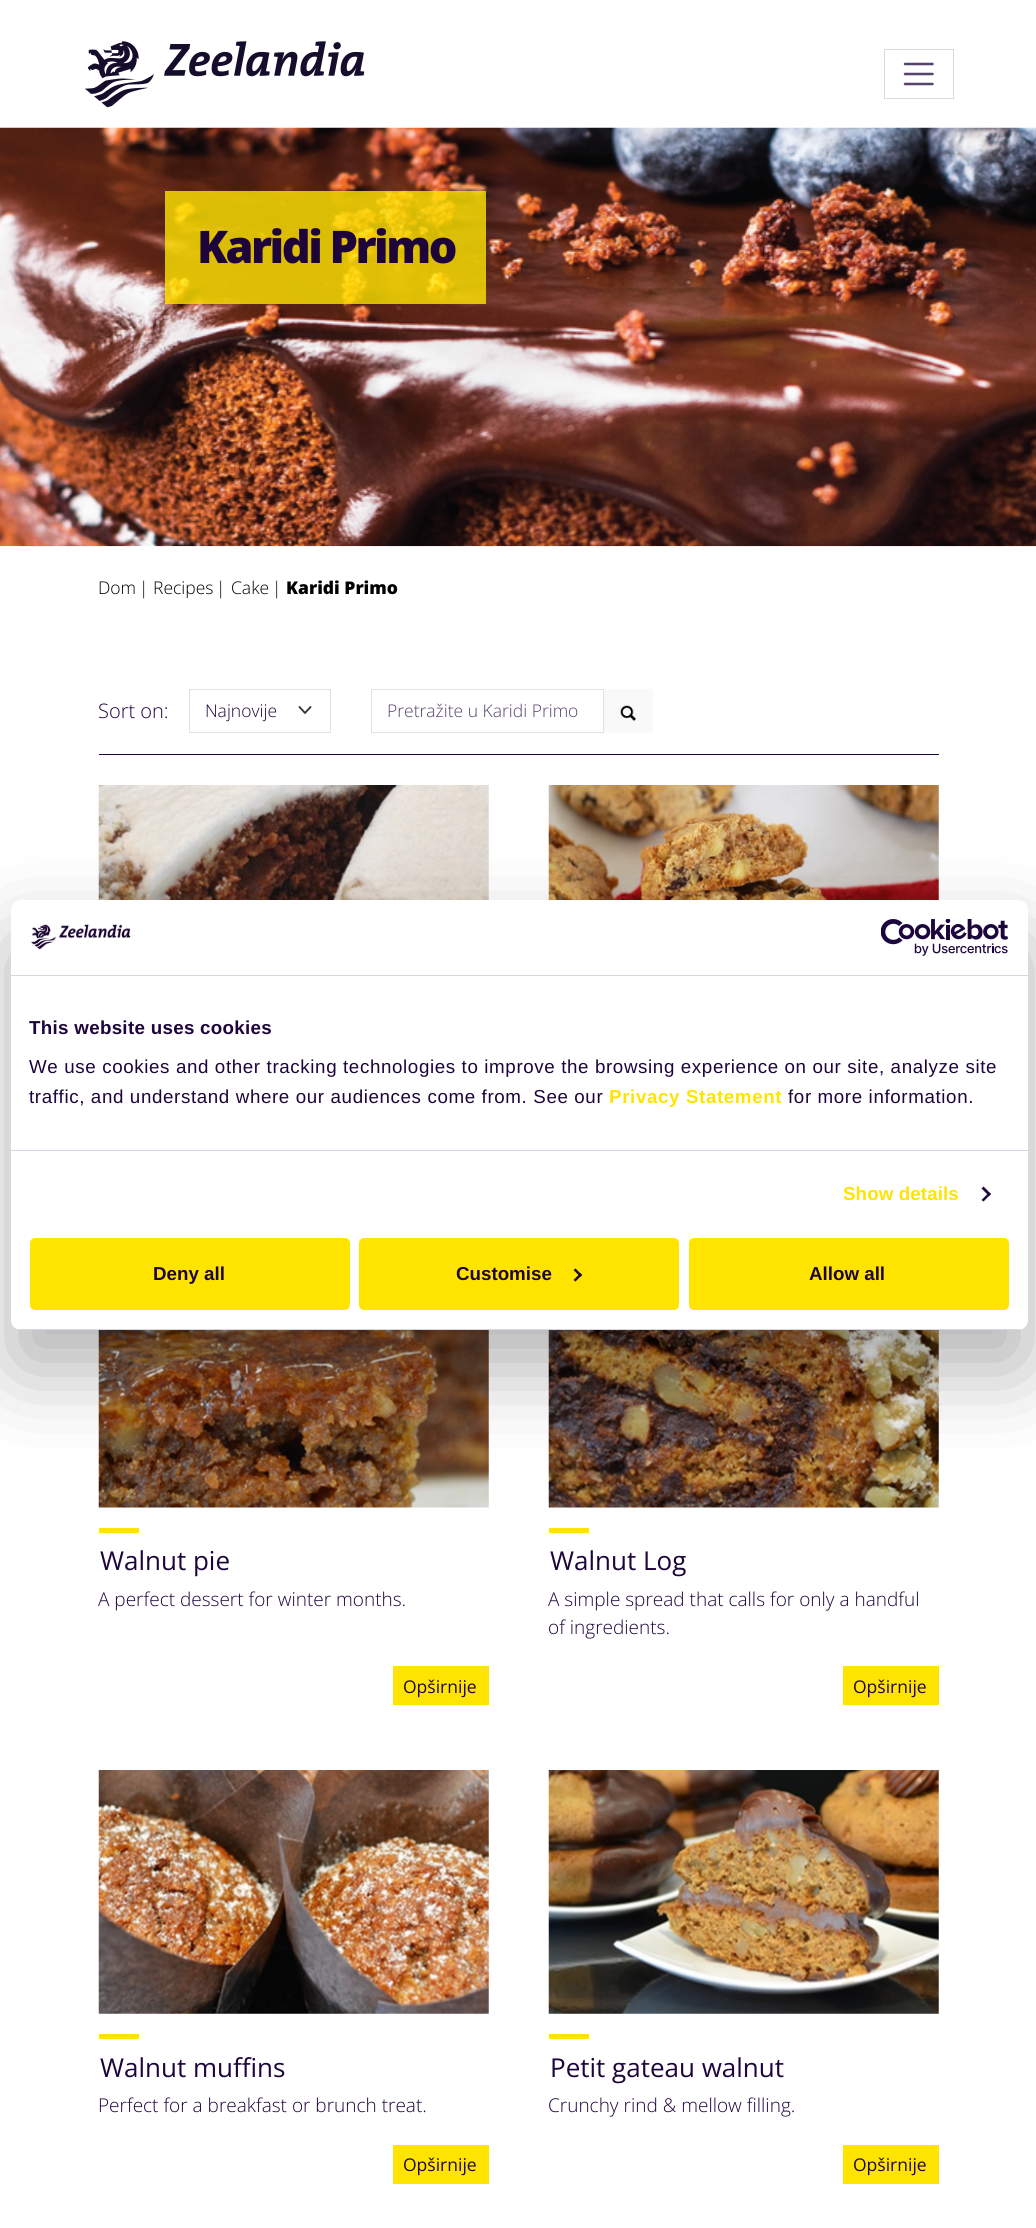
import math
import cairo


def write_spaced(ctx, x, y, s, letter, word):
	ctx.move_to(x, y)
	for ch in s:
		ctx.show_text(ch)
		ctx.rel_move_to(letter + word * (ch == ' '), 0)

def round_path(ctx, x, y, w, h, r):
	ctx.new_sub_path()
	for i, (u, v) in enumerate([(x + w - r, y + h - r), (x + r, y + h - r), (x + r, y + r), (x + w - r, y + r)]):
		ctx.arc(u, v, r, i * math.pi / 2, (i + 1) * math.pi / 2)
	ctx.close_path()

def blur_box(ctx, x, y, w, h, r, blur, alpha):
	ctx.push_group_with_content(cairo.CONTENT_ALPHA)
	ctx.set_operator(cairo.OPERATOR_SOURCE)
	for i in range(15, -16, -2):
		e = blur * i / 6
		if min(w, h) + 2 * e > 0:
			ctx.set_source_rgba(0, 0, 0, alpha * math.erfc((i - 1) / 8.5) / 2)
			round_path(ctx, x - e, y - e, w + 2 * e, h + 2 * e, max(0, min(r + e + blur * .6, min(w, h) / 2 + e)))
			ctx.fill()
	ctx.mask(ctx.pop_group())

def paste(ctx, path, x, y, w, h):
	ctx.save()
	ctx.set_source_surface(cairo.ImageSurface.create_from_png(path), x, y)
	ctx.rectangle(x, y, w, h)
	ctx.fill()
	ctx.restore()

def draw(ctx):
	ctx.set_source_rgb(1, 1, 1)
	ctx.paint()
	paste(ctx, 'media/1.png', 85, 41, 280, 67)
	ctx.rectangle(884.5, 49.5, 69, 49)
	ctx.set_source_rgb(0.851, 0.851, 0.851)
	ctx.set_line_width(1)
	ctx.stroke()
	ctx.new_path()
	ctx.move_to(905, 64)
	ctx.line_to(932.5, 64)
	ctx.move_to(905, 74)
	ctx.line_to(932.5, 74)
	ctx.move_to(905, 84)
	ctx.line_to(932.5, 84)
	ctx.set_source_rgb(0.337, 0.267, 0.427)
	ctx.set_line_width(2.5)
	ctx.set_line_cap(cairo.LINE_CAP_ROUND)
	ctx.stroke()
	paste(ctx, 'media/2.png', 0, 127, 1036, 420)
	ctx.set_source_rgba(1, 0.894, 0.008, 0.8)
	ctx.rectangle(165, 191, 321, 113)
	ctx.fill()
	ctx.select_font_face('Open Sans ExtraBold')
	ctx.set_font_size(45)
	ctx.set_source_rgb(0.114, 0.02, 0.235)
	write_spaced(ctx, 197, 263, 'Karidi Primo', -2.5, 0)
	ctx.select_font_face('Open Sans Light')
	ctx.set_font_size(17.5)
	ctx.set_source_rgb(0, 0, 0)
	for x, y, s in [
		(98, 594, 'Dom'),
		(139, 594, '|'),
		(153, 594, 'Recipes'),
		(216, 594, '|'),
		(231, 594, 'Cake'),
		(272, 594, '|'),
	]:
		ctx.move_to(x, y)
		ctx.show_text(s)
	ctx.select_font_face('Open Sans ExtraBold')
	ctx.move_to(286, 594)
	ctx.show_text('Karidi Primo')
	ctx.set_source_rgb(0.114, 0.02, 0.235)
	ctx.rectangle(99, 754, 840, 1)
	ctx.fill()
	ctx.select_font_face('Open Sans Light')
	ctx.set_font_size(20)
	ctx.move_to(98, 718)
	ctx.show_text('Sort on:')
	ctx.new_path()
	ctx.move_to(299.5, 707)
	ctx.line_to(305, 713)
	ctx.line_to(310.5, 707)
	ctx.set_source_rgb(0.204, 0.227, 0.251)
	ctx.set_line_width(1.9)
	ctx.set_line_join(cairo.LINE_JOIN_ROUND)
	ctx.stroke()
	ctx.rectangle(189.5, 689.5, 141, 43)
	ctx.set_source_rgb(0.871, 0.886, 0.902)
	ctx.set_line_width(1)
	ctx.set_line_cap(cairo.LINE_CAP_BUTT)
	ctx.set_line_join(cairo.LINE_JOIN_MITER)
	ctx.stroke()
	ctx.set_font_size(17.5)
	ctx.set_source_rgb(0.114, 0.02, 0.235)
	ctx.move_to(205, 717)
	ctx.show_text('Najnovije')
	ctx.rectangle(371.5, 689.5, 232, 43)
	ctx.set_source_rgb(0.871, 0.886, 0.902)
	ctx.stroke()
	ctx.set_source_rgb(0.337, 0.267, 0.427)
	ctx.move_to(387, 717)
	ctx.show_text('Pretražite u Karidi Primo')
	ctx.set_source_rgb(0.973, 0.976, 0.98)
	ctx.rectangle(604, 689, 49, 44)
	ctx.fill()
	paste(ctx, 'media/3.png', 620, 705, 16, 16)
	paste(ctx, 'media/4.png', 98, 785, 391, 115)
	paste(ctx, 'media/5.png', 548, 785, 391, 115)
	paste(ctx, 'media/6.png', 98, 1330, 391, 178)
	ctx.set_source_rgb(1, 0.894, 0.008)
	ctx.rectangle(99, 1528, 40, 5)
	ctx.fill()
	ctx.select_font_face('Open Sans')
	ctx.set_font_size(26)
	ctx.set_source_rgb(0.114, 0.02, 0.235)
	ctx.move_to(100, 1570)
	ctx.show_text('Walnut pie')
	ctx.select_font_face('Open Sans Light')
	ctx.set_font_size(19)
	ctx.move_to(98, 1606)
	ctx.show_text('A perfect dessert for winter months.')
	ctx.set_source_rgb(1, 0.894, 0.008)
	ctx.rectangle(393, 1666, 96, 39)
	ctx.fill()
	ctx.select_font_face('Open Sans')
	ctx.set_font_size(17.5)
	ctx.set_source_rgb(0.114, 0.02, 0.235)
	ctx.move_to(403, 1693)
	ctx.show_text('Opširnije')
	paste(ctx, 'media/7.png', 548, 1330, 391, 178)
	ctx.set_source_rgb(1, 0.894, 0.008)
	ctx.rectangle(549, 1528, 40, 5)
	ctx.fill()
	ctx.set_font_size(26)
	ctx.set_source_rgb(0.114, 0.02, 0.235)
	ctx.move_to(550, 1570)
	ctx.show_text('Walnut Log')
	ctx.select_font_face('Open Sans Light')
	ctx.set_font_size(19)
	ctx.move_to(548, 1606)
	ctx.show_text('A simple spread that calls for only a handful')
	ctx.move_to(548, 1634)
	ctx.show_text('of ingredients.')
	ctx.set_source_rgb(1, 0.894, 0.008)
	ctx.rectangle(843, 1666, 96, 39)
	ctx.fill()
	ctx.select_font_face('Open Sans')
	ctx.set_font_size(17.5)
	ctx.set_source_rgb(0.114, 0.02, 0.235)
	ctx.move_to(853, 1693)
	ctx.show_text('Opširnije')
	paste(ctx, 'media/8.png', 98, 1770, 391, 244)
	ctx.set_source_rgb(1, 0.894, 0.008)
	ctx.rectangle(99, 2034, 40, 5)
	ctx.fill()
	ctx.set_font_size(26)
	ctx.set_source_rgb(0.114, 0.02, 0.235)
	ctx.move_to(100, 2077)
	ctx.show_text('Walnut muffins')
	ctx.select_font_face('Open Sans Light')
	ctx.set_font_size(19)
	ctx.move_to(98, 2112)
	ctx.show_text('Perfect for a breakfast or brunch treat.')
	ctx.set_source_rgb(1, 0.894, 0.008)
	ctx.rectangle(393, 2145, 96, 39)
	ctx.fill()
	ctx.select_font_face('Open Sans')
	ctx.set_font_size(17.5)
	ctx.set_source_rgb(0.114, 0.02, 0.235)
	ctx.move_to(403, 2171)
	ctx.show_text('Opširnije')
	paste(ctx, 'media/9.png', 548, 1770, 391, 244)
	ctx.set_source_rgb(1, 0.894, 0.008)
	ctx.rectangle(549, 2034, 40, 5)
	ctx.fill()
	ctx.set_font_size(26)
	ctx.set_source_rgb(0.114, 0.02, 0.235)
	ctx.move_to(550, 2077)
	ctx.show_text('Petit gateau walnut')
	ctx.select_font_face('Open Sans Light')
	ctx.set_font_size(19)
	ctx.move_to(548, 2112)
	ctx.show_text('Crunchy rind & mellow filling.')
	ctx.set_source_rgb(1, 0.894, 0.008)
	ctx.rectangle(843, 2145, 96, 39)
	ctx.fill()
	ctx.select_font_face('Open Sans')
	ctx.set_font_size(17.5)
	ctx.set_source_rgb(0.114, 0.02, 0.235)
	ctx.move_to(853, 2171)
	ctx.show_text('Opširnije')
	ctx.set_source_rgb(0, 0, 0)
	blur_box(ctx, 11, 940, 1017, 430, 10, 42.5, 0.3)
	ctx.set_source_rgb(1, 1, 1)
	round_path(ctx, 11, 900, 1017, 430, 10)
	ctx.fill()
	ctx.set_source_rgb(0.843, 0.835, 0.886)
	ctx.rectangle(11, 975, 1017, 1)
	ctx.fill()
	paste(ctx, 'media/10.png', 31, 924, 100, 26)
	paste(ctx, 'media/11.png', 881, 919, 127, 37)
	ctx.rectangle(11, 1150, 1017, 1)
	ctx.fill()
	ctx.select_font_face('Liberation Sans', cairo.FONT_SLANT_NORMAL, cairo.FONT_WEIGHT_BOLD)
	ctx.set_font_size(18.75)
	ctx.set_source_rgb(0.114, 0.02, 0.235)
	write_spaced(ctx, 29, 1034, 'This website uses cookies', 0.3, 0)
	ctx.select_font_face('Liberation Sans')
	write_spaced(ctx, 29, 1073, 'We use cookies and other tracking technologies to improve the browsing experience on our site, analyze site', 0.62, 0)
	write_spaced(ctx, 29, 1103, 'traffic, and understand where our audiences come from. See our', 0.62, 0)
	ctx.select_font_face('Liberation Sans', cairo.FONT_SLANT_NORMAL, cairo.FONT_WEIGHT_BOLD)
	ctx.set_source_rgb(1, 0.894, 0)
	write_spaced(ctx, 609, 1103, 'Privacy Statement', 0.62, 0)
	ctx.select_font_face('Liberation Sans')
	ctx.set_source_rgb(0.114, 0.02, 0.235)
	write_spaced(ctx, 788, 1103, 'for more information.', 0.62, 0)
	ctx.select_font_face('Liberation Sans', cairo.FONT_SLANT_NORMAL, cairo.FONT_WEIGHT_BOLD)
	ctx.set_source_rgb(1, 0.894, 0)
	write_spaced(ctx, 843, 1200, 'Show details', 0.1, 0)
	ctx.set_source_rgb(0.114, 0.02, 0.239)
	ctx.new_path()
	ctx.move_to(983.5, 1186.5)
	ctx.line_to(991, 1194)
	ctx.line_to(989, 1196)
	ctx.line_to(981.5, 1188.5)
	ctx.close_path()
	ctx.fill()
	ctx.new_path()
	ctx.move_to(989, 1192.5)
	ctx.line_to(991, 1194)
	ctx.line_to(983.5, 1201.5)
	ctx.line_to(981.5, 1200)
	ctx.close_path()
	ctx.fill()
	ctx.save()
	round_path(ctx, 11, 900, 1017, 430, 10)
	ctx.clip()
	ctx.set_source_rgb(0.843, 0.835, 0.886)
	ctx.rectangle(11, 1329, 1017, 1)
	ctx.fill()
	ctx.restore()
	ctx.set_source_rgb(1, 0.894, 0)
	round_path(ctx, 31.5, 1239.5, 317, 69, 3.5)
	ctx.fill_preserve()
	ctx.set_line_width(3)
	ctx.stroke()
	ctx.set_source_rgb(0.114, 0.02, 0.235)
	ctx.move_to(153, 1280)
	ctx.show_text('Deny all')
	ctx.set_source_rgb(1, 0.894, 0)
	round_path(ctx, 360.5, 1239.5, 317, 69, 3.5)
	ctx.fill_preserve()
	ctx.stroke()
	ctx.set_source_rgb(0.114, 0.02, 0.235)
	ctx.move_to(456, 1280)
	ctx.show_text('Customise')
	ctx.set_source_rgb(0.114, 0.02, 0.239)
	ctx.new_path()
	ctx.move_to(575.5, 1268.5)
	ctx.line_to(582, 1275)
	ctx.line_to(580.5, 1277)
	ctx.line_to(573.5, 1270)
	ctx.close_path()
	ctx.fill()
	ctx.new_path()
	ctx.move_to(580.5, 1273)
	ctx.line_to(582, 1275)
	ctx.line_to(575.5, 1281.5)
	ctx.line_to(573.5, 1280)
	ctx.close_path()
	ctx.fill()
	ctx.set_source_rgb(1, 0.894, 0)
	round_path(ctx, 690.5, 1239.5, 317, 69, 3.5)
	ctx.fill_preserve()
	ctx.stroke()
	ctx.set_source_rgb(0.114, 0.02, 0.235)
	ctx.move_to(809, 1280)
	ctx.show_text('Allow all')


surface = cairo.ImageSurface(cairo.FORMAT_RGB24, 1036, 2228)
ctx = cairo.Context(surface)
options = cairo.FontOptions()
options.set_hint_metrics(cairo.HINT_METRICS_OFF)
options.set_hint_style(cairo.HINT_STYLE_NONE)
ctx.set_font_options(options)
ctx.set_miter_limit(4)
draw(ctx)
surface.write_to_png('image.png')
